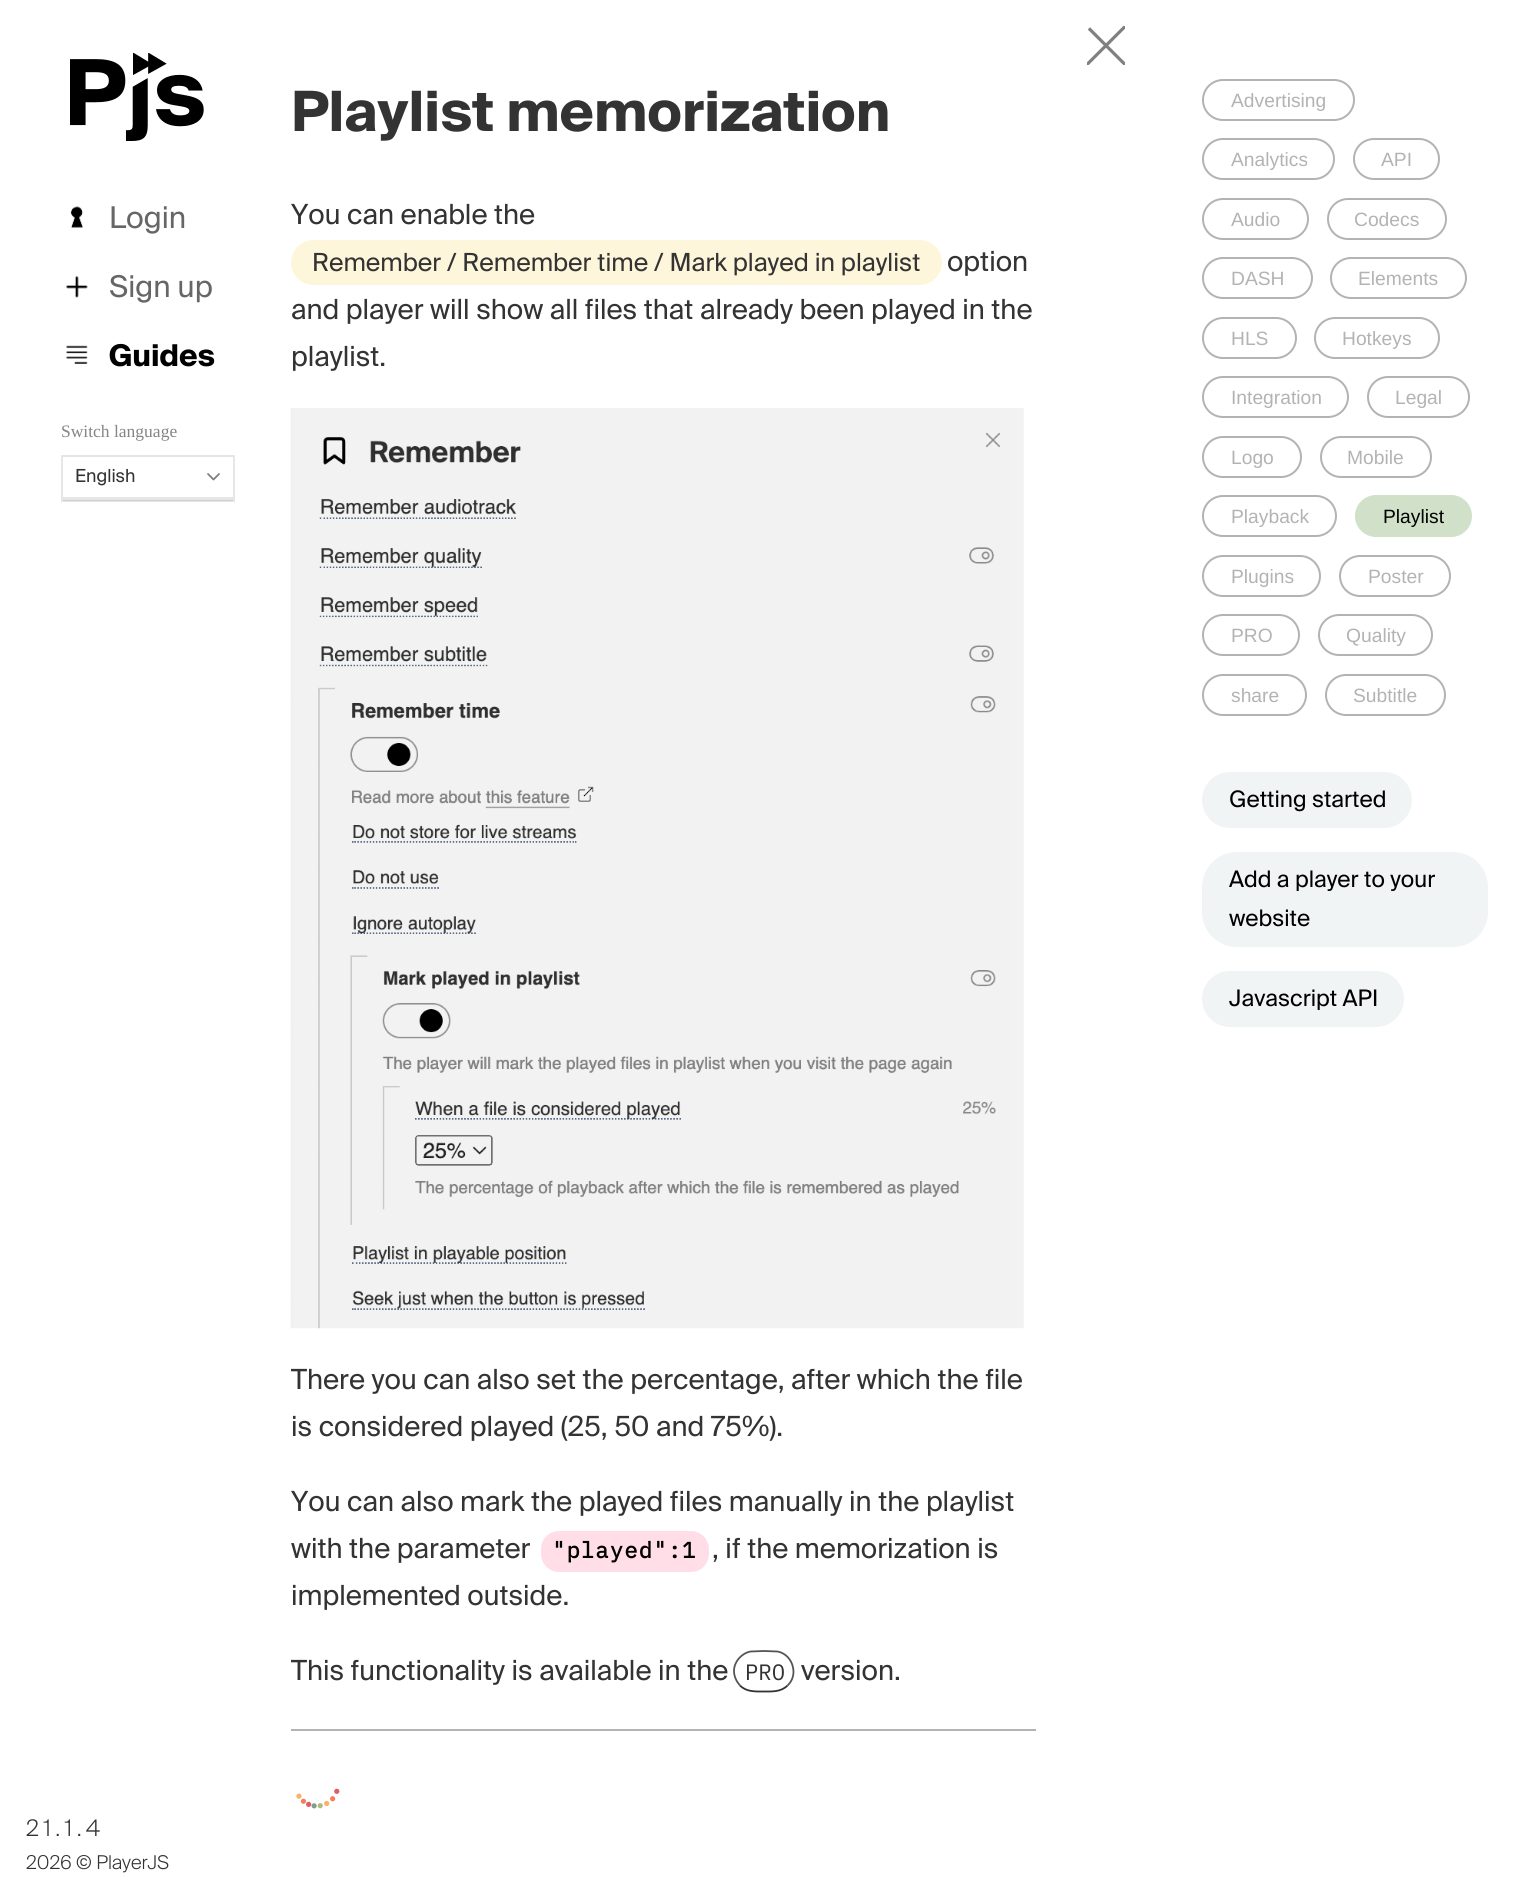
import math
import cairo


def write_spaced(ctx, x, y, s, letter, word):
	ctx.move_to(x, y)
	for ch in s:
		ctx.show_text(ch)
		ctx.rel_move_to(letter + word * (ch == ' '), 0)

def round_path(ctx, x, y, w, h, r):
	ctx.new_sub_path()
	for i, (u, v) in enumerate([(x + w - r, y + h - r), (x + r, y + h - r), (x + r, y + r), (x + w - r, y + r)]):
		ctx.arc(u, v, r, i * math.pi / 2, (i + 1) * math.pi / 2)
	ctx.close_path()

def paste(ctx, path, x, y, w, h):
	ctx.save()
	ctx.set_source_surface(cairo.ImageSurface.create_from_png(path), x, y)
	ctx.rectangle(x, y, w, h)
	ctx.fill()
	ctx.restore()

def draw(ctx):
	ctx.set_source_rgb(1, 1, 1)
	ctx.paint()
	paste(ctx, 'media/1.png', 70, 53, 134, 88)
	paste(ctx, 'media/2.png', 70, 206, 13, 22)
	ctx.select_font_face('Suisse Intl')
	ctx.set_font_size(30)
	ctx.set_source_rgb(0.4, 0.4, 0.4)
	ctx.move_to(109, 228)
	ctx.show_text('Login')
	paste(ctx, 'media/3.png', 66, 276, 22, 22)
	ctx.move_to(109, 297)
	ctx.show_text('Sign up')
	paste(ctx, 'media/4.png', 66, 345, 22, 19)
	ctx.select_font_face('Suisse Intl', cairo.FONT_SLANT_NORMAL, cairo.FONT_WEIGHT_BOLD)
	ctx.set_source_rgb(0, 0, 0)
	ctx.move_to(109, 366)
	ctx.show_text('Guides')
	ctx.select_font_face('Liberation Serif')
	ctx.set_font_size(17.5)
	ctx.set_source_rgb(0.522, 0.522, 0.522)
	ctx.move_to(61, 437)
	ctx.show_text('Switch language')
	ctx.rectangle(62, 456, 172, 45)
	ctx.set_source_rgb(0.902, 0.902, 0.902)
	ctx.stroke()
	ctx.select_font_face('Suisse Intl')
	ctx.set_font_size(18)
	ctx.set_source_rgb(0.2, 0.2, 0.2)
	ctx.move_to(75, 482)
	ctx.show_text('English')
	ctx.new_path()
	ctx.move_to(208, 474)
	ctx.line_to(213.5, 479.5)
	ctx.line_to(219, 474)
	ctx.set_source_rgb(0.502, 0.502, 0.502)
	ctx.set_line_width(1.8)
	ctx.set_line_cap(cairo.LINE_CAP_ROUND)
	ctx.set_line_join(cairo.LINE_JOIN_ROUND)
	ctx.stroke()
	ctx.set_source_rgba(0, 0, 0, 0.1)
	ctx.rectangle(63, 497, 170, 4)
	ctx.fill()
	ctx.save()
	ctx.rectangle(1087, 26, 38, 39)
	ctx.clip()
	ctx.new_path()
	ctx.move_to(1090, 29.5)
	ctx.line_to(1154, 93.5)
	ctx.move_to(1138, 13.5)
	ctx.line_to(1074, 77.5)
	ctx.set_source_rgb(0.502, 0.502, 0.502)
	ctx.set_line_width(3.2)
	ctx.set_line_cap(cairo.LINE_CAP_SQUARE)
	ctx.set_line_join(cairo.LINE_JOIN_MITER)
	ctx.stroke()
	ctx.restore()
	ctx.select_font_face('Suisse Intl', cairo.FONT_SLANT_NORMAL, cairo.FONT_WEIGHT_BOLD)
	ctx.set_font_size(55.5)
	ctx.set_source_rgb(0.2, 0.2, 0.2)
	ctx.move_to(291, 131)
	ctx.show_text('Playlist memorization')
	ctx.select_font_face('Suisse Intl')
	ctx.set_font_size(27.75)
	ctx.move_to(291, 224)
	ctx.show_text('You can enable the')
	ctx.set_source_rgb(0.996, 0.961, 0.855)
	round_path(ctx, 291, 240, 651, 45, 22.5)
	ctx.fill()
	ctx.set_font_size(24.95)
	ctx.set_source_rgb(0.2, 0.2, 0.2)
	ctx.move_to(312, 271)
	ctx.show_text('Remember / Remember time / Mark played in playlist')
	ctx.set_font_size(27.75)
	for x, y, s in [
		(947, 271, 'option'),
		(291, 319, 'and player will show all files that already been played in the'),
		(291, 366, 'playlist.'),
	]:
		ctx.move_to(x, y)
		ctx.show_text(s)
	paste(ctx, 'media/5.png', 290, 408, 734, 921)
	for x, y, s in [
		(291, 1389, 'There you can also set the percentage, after which the file'),
		(291, 1436, 'is considered played (25, 50 and 75%).'),
		(291, 1511, 'You can also mark the played files manually in the playlist'),
		(291, 1558, 'with the parameter'),
	]:
		ctx.move_to(x, y)
		ctx.show_text(s)
	ctx.set_source_rgb(1, 0.871, 0.906)
	round_path(ctx, 541, 1531, 168, 41, 18)
	ctx.fill()
	ctx.select_font_face('IBM Plex Mono', cairo.FONT_SLANT_NORMAL, cairo.FONT_WEIGHT_BOLD)
	ctx.set_font_size(22.25)
	ctx.set_source_rgb(0, 0, 0)
	write_spaced(ctx, 552, 1558, '"played":1', 1.1, 0)
	ctx.select_font_face('Suisse Intl')
	ctx.set_font_size(27.75)
	ctx.set_source_rgb(0.2, 0.2, 0.2)
	for x, y, s in [
		(712, 1558, ', if the memorization is'),
		(291, 1605, 'implemented outside.'),
		(291, 1680, 'This functionality is available in the'),
	]:
		ctx.move_to(x, y)
		ctx.show_text(s)
	ctx.new_path()
	ctx.move_to(787.5, 1685.5)
	ctx.curve_to(781, 1692, 772.5, 1691.5, 764, 1691.5)
	ctx.curve_to(755, 1691.5, 746.5, 1692, 740, 1685.5)
	ctx.set_line_cap(cairo.LINE_CAP_BUTT)
	ctx.set_line_join(cairo.LINE_JOIN_MITER)
	ctx.stroke()
	ctx.new_path()
	ctx.move_to(740, 1685.5)
	ctx.curve_to(736.5, 1681.5, 734, 1676.5, 734, 1671)
	ctx.curve_to(734, 1662, 741, 1653.5, 750.5, 1651.5)
	ctx.line_to(764, 1651)
	ctx.line_to(777.5, 1651.5)
	ctx.curve_to(785.5, 1653, 791.5, 1659.5, 793, 1667.5)
	ctx.curve_to(794.5, 1674, 792.5, 1681, 787.5, 1685.5)
	ctx.set_source_rgb(0.333, 0.333, 0.333)
	ctx.stroke()
	ctx.select_font_face('IBM Plex Mono')
	ctx.set_font_size(22.25)
	ctx.set_source_rgb(0.2, 0.2, 0.2)
	ctx.move_to(745, 1680)
	ctx.show_text('PRO')
	ctx.select_font_face('Suisse Intl')
	ctx.set_font_size(27.75)
	ctx.move_to(801, 1680)
	ctx.show_text('version.')
	ctx.set_source_rgb(0.702, 0.702, 0.702)
	ctx.rectangle(291, 1729, 745, 2)
	ctx.fill()
	paste(ctx, 'media/6.png', 296, 1788, 44, 21)
	round_path(ctx, 1203, 80, 151, 40, 20)
	ctx.set_line_width(2)
	ctx.stroke()
	ctx.select_font_face('Liberation Sans')
	ctx.set_font_size(19.25)
	ctx.move_to(1231, 107)
	ctx.show_text('Advertising')
	round_path(ctx, 1203, 139, 131, 40, 20)
	ctx.stroke()
	ctx.move_to(1231, 166)
	ctx.show_text('Analytics')
	round_path(ctx, 1354, 139, 85, 40, 20)
	ctx.stroke()
	ctx.move_to(1381, 166)
	ctx.show_text('API')
	round_path(ctx, 1203, 199, 105, 40, 20)
	ctx.stroke()
	ctx.move_to(1231, 226)
	ctx.show_text('Audio')
	round_path(ctx, 1328, 199, 118, 40, 20)
	ctx.stroke()
	ctx.move_to(1354, 226)
	ctx.show_text('Codecs')
	round_path(ctx, 1203, 258, 109, 40, 20)
	ctx.stroke()
	ctx.move_to(1231, 285)
	ctx.show_text('DASH')
	round_path(ctx, 1331, 258, 135, 40, 20)
	ctx.stroke()
	ctx.move_to(1358, 285)
	ctx.show_text('Elements')
	round_path(ctx, 1203, 318, 93, 40, 20)
	ctx.stroke()
	ctx.move_to(1231, 345)
	ctx.show_text('HLS')
	round_path(ctx, 1315, 318, 124, 40, 20)
	ctx.stroke()
	ctx.move_to(1342, 345)
	ctx.show_text('Hotkeys')
	round_path(ctx, 1203, 377, 145, 40, 20)
	ctx.stroke()
	ctx.move_to(1231, 404)
	ctx.show_text('Integration')
	round_path(ctx, 1368, 377, 101, 40, 20)
	ctx.stroke()
	ctx.move_to(1395, 404)
	ctx.show_text('Legal')
	round_path(ctx, 1203, 437, 98, 40, 20)
	ctx.stroke()
	ctx.move_to(1231, 464)
	ctx.show_text('Logo')
	round_path(ctx, 1321, 437, 110, 40, 20)
	ctx.stroke()
	ctx.move_to(1347, 464)
	ctx.show_text('Mobile')
	round_path(ctx, 1203, 496, 133, 40, 20)
	ctx.stroke()
	ctx.move_to(1231, 523)
	ctx.show_text('Playback')
	ctx.set_source_rgb(0.816, 0.878, 0.788)
	round_path(ctx, 1356, 496, 115, 40, 20)
	ctx.fill_preserve()
	ctx.stroke()
	ctx.set_source_rgb(0, 0, 0)
	ctx.move_to(1383, 523)
	ctx.show_text('Playlist')
	round_path(ctx, 1203, 556, 117, 40, 20)
	ctx.set_source_rgb(0.702, 0.702, 0.702)
	ctx.stroke()
	ctx.move_to(1231, 583)
	ctx.show_text('Plugins')
	round_path(ctx, 1340, 556, 110, 40, 20)
	ctx.stroke()
	ctx.move_to(1368, 583)
	ctx.show_text('Poster')
	round_path(ctx, 1203, 615, 96, 40, 20)
	ctx.stroke()
	ctx.move_to(1231, 642)
	ctx.show_text('PRO')
	round_path(ctx, 1319, 615, 113, 40, 20)
	ctx.stroke()
	ctx.move_to(1346, 642)
	ctx.show_text('Quality')
	round_path(ctx, 1203, 675, 103, 40, 20)
	ctx.stroke()
	ctx.move_to(1231, 702)
	ctx.show_text('share')
	round_path(ctx, 1326, 675, 119, 40, 20)
	ctx.stroke()
	ctx.move_to(1353, 702)
	ctx.show_text('Subtitle')
	ctx.set_source_rgb(0.945, 0.957, 0.957)
	round_path(ctx, 1202, 772, 210, 56, 28)
	ctx.fill()
	ctx.select_font_face('Suisse Intl')
	ctx.set_font_size(22.75)
	ctx.set_source_rgb(0, 0, 0)
	ctx.move_to(1229, 807)
	ctx.show_text('Getting started')
	ctx.set_source_rgb(0.945, 0.957, 0.957)
	round_path(ctx, 1202, 852, 286, 95, 35)
	ctx.fill()
	ctx.set_source_rgb(0, 0, 0)
	ctx.move_to(1229, 887)
	ctx.show_text('Add a player to your')
	ctx.move_to(1229, 926)
	ctx.show_text('website')
	ctx.set_source_rgb(0.945, 0.957, 0.957)
	round_path(ctx, 1202, 971, 202, 56, 28)
	ctx.fill()
	ctx.set_source_rgb(0, 0, 0)
	ctx.move_to(1229, 1006)
	ctx.show_text('Javascript API')
	ctx.select_font_face('Suisse Intl Light')
	ctx.set_source_rgb(0.2, 0.2, 0.2)
	write_spaced(ctx, 26, 1836, '21.1.4', 4.5, 0)
	ctx.set_font_size(19)
	ctx.move_to(26, 1869)
	ctx.show_text('2026 © PlayerJS')


surface = cairo.ImageSurface(cairo.FORMAT_RGB24, 1530, 1889)
ctx = cairo.Context(surface)
options = cairo.FontOptions()
options.set_hint_metrics(cairo.HINT_METRICS_OFF)
options.set_hint_style(cairo.HINT_STYLE_NONE)
ctx.set_font_options(options)
ctx.set_miter_limit(4)
draw(ctx)
surface.write_to_png('image.png')
